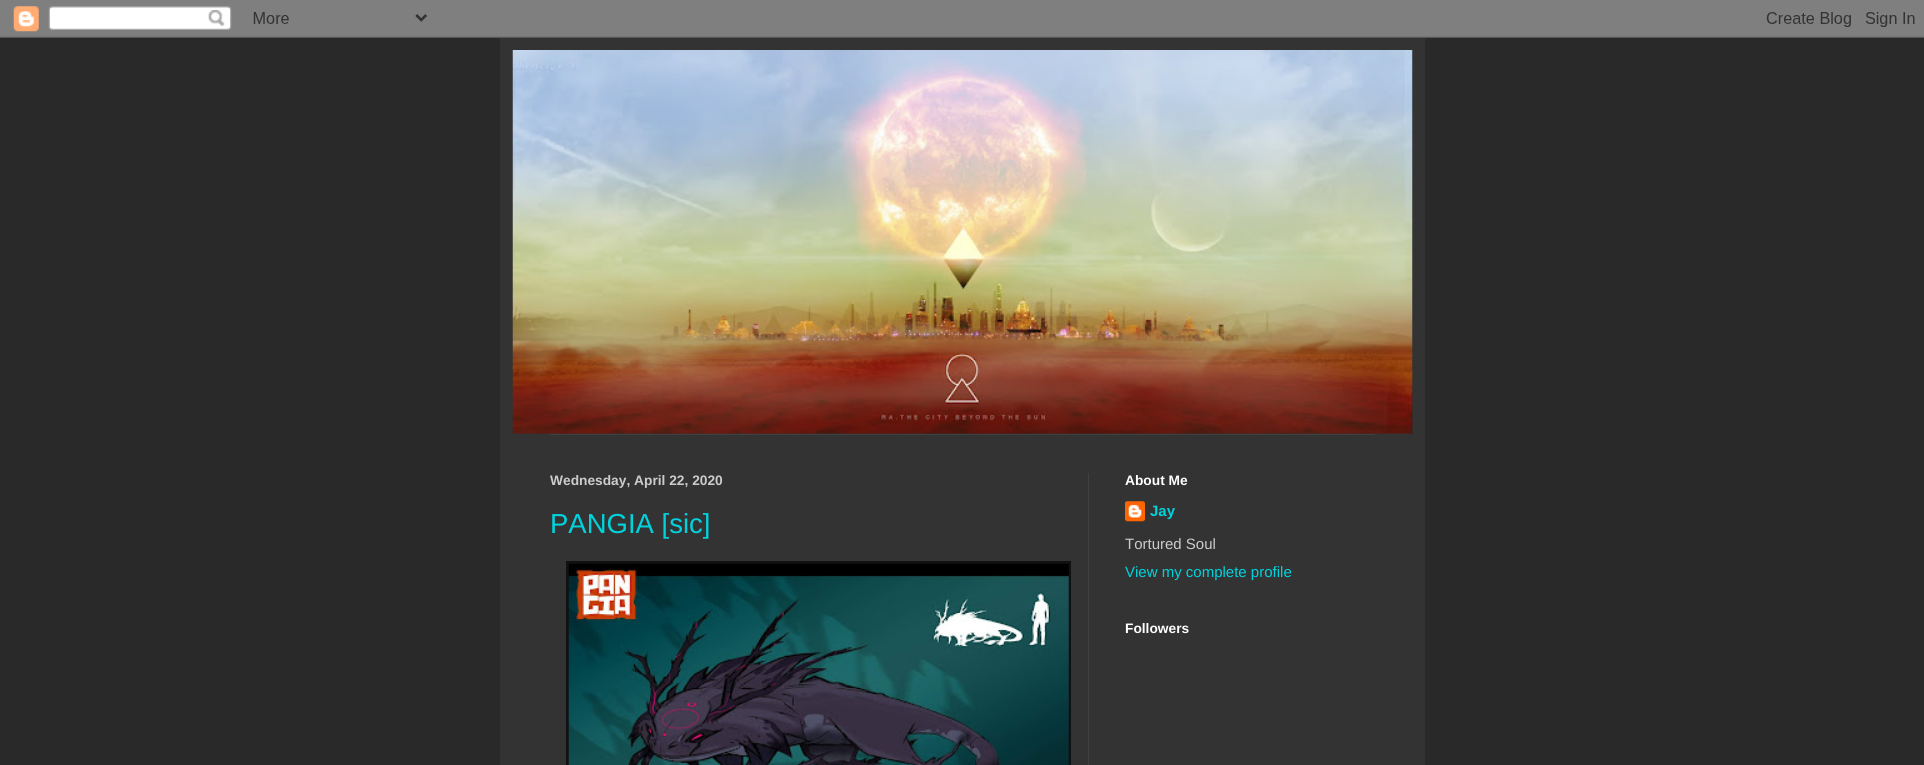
import math
import cairo


def paste(ctx, path, x, y, w, h):
	ctx.save()
	ctx.set_source_surface(cairo.ImageSurface.create_from_png(path), x, y)
	ctx.rectangle(x, y, w, h)
	ctx.fill()
	ctx.restore()

def draw(ctx):
	ctx.set_source_rgb(0.161, 0.161, 0.161)
	ctx.paint()
	paste(ctx, 'media/1.png', 0, 0, 1924, 38)
	ctx.set_source_rgb(0.2, 0.2, 0.2)
	ctx.rectangle(500, 38, 925, 727)
	ctx.fill()
	paste(ctx, 'media/2.png', 512, 50, 901, 384)
	ctx.set_source_rgb(0.251, 0.251, 0.251)
	ctx.rectangle(550, 434, 825, 1)
	ctx.fill()
	ctx.rectangle(1088, 473, 1, 292)
	ctx.fill()
	ctx.select_font_face('Liberation Sans', cairo.FONT_SLANT_NORMAL, cairo.FONT_WEIGHT_BOLD)
	ctx.set_font_size(13.75)
	ctx.set_source_rgb(0.8, 0.8, 0.8)
	ctx.move_to(550, 485)
	ctx.show_text('Wednesday, April 22, 2020')
	ctx.select_font_face('Liberation Sans')
	ctx.set_font_size(27.5)
	ctx.set_source_rgb(0, 0.827, 0.867)
	ctx.move_to(550, 533)
	ctx.show_text('PANGIA [sic]')
	ctx.set_source_rgb(0.067, 0.067, 0.067)
	ctx.rectangle(566, 561, 505, 204)
	ctx.fill()
	paste(ctx, 'media/3.png', 568, 563, 501, 202)
	ctx.select_font_face('Liberation Sans', cairo.FONT_SLANT_NORMAL, cairo.FONT_WEIGHT_BOLD)
	ctx.set_font_size(13.75)
	ctx.set_source_rgb(1, 1, 1)
	ctx.move_to(1125, 485)
	ctx.show_text('About Me')
	paste(ctx, 'media/4.png', 1125, 501, 20, 21)
	ctx.set_font_size(15)
	ctx.set_source_rgb(0, 0.827, 0.867)
	ctx.move_to(1150, 516)
	ctx.show_text('Jay')
	ctx.select_font_face('Liberation Sans')
	ctx.set_source_rgb(0.8, 0.8, 0.8)
	ctx.move_to(1125, 549)
	ctx.show_text('Tortured Soul')
	ctx.set_source_rgb(0, 0.827, 0.867)
	ctx.move_to(1125, 577)
	ctx.show_text('View my complete profile')
	ctx.select_font_face('Liberation Sans', cairo.FONT_SLANT_NORMAL, cairo.FONT_WEIGHT_BOLD)
	ctx.set_font_size(13.75)
	ctx.set_source_rgb(1, 1, 1)
	ctx.move_to(1125, 633)
	ctx.show_text('Followers')


surface = cairo.ImageSurface(cairo.FORMAT_RGB24, 1924, 765)
ctx = cairo.Context(surface)
options = cairo.FontOptions()
options.set_hint_metrics(cairo.HINT_METRICS_OFF)
options.set_hint_style(cairo.HINT_STYLE_NONE)
ctx.set_font_options(options)
ctx.set_miter_limit(4)
draw(ctx)
surface.write_to_png('image.png')
